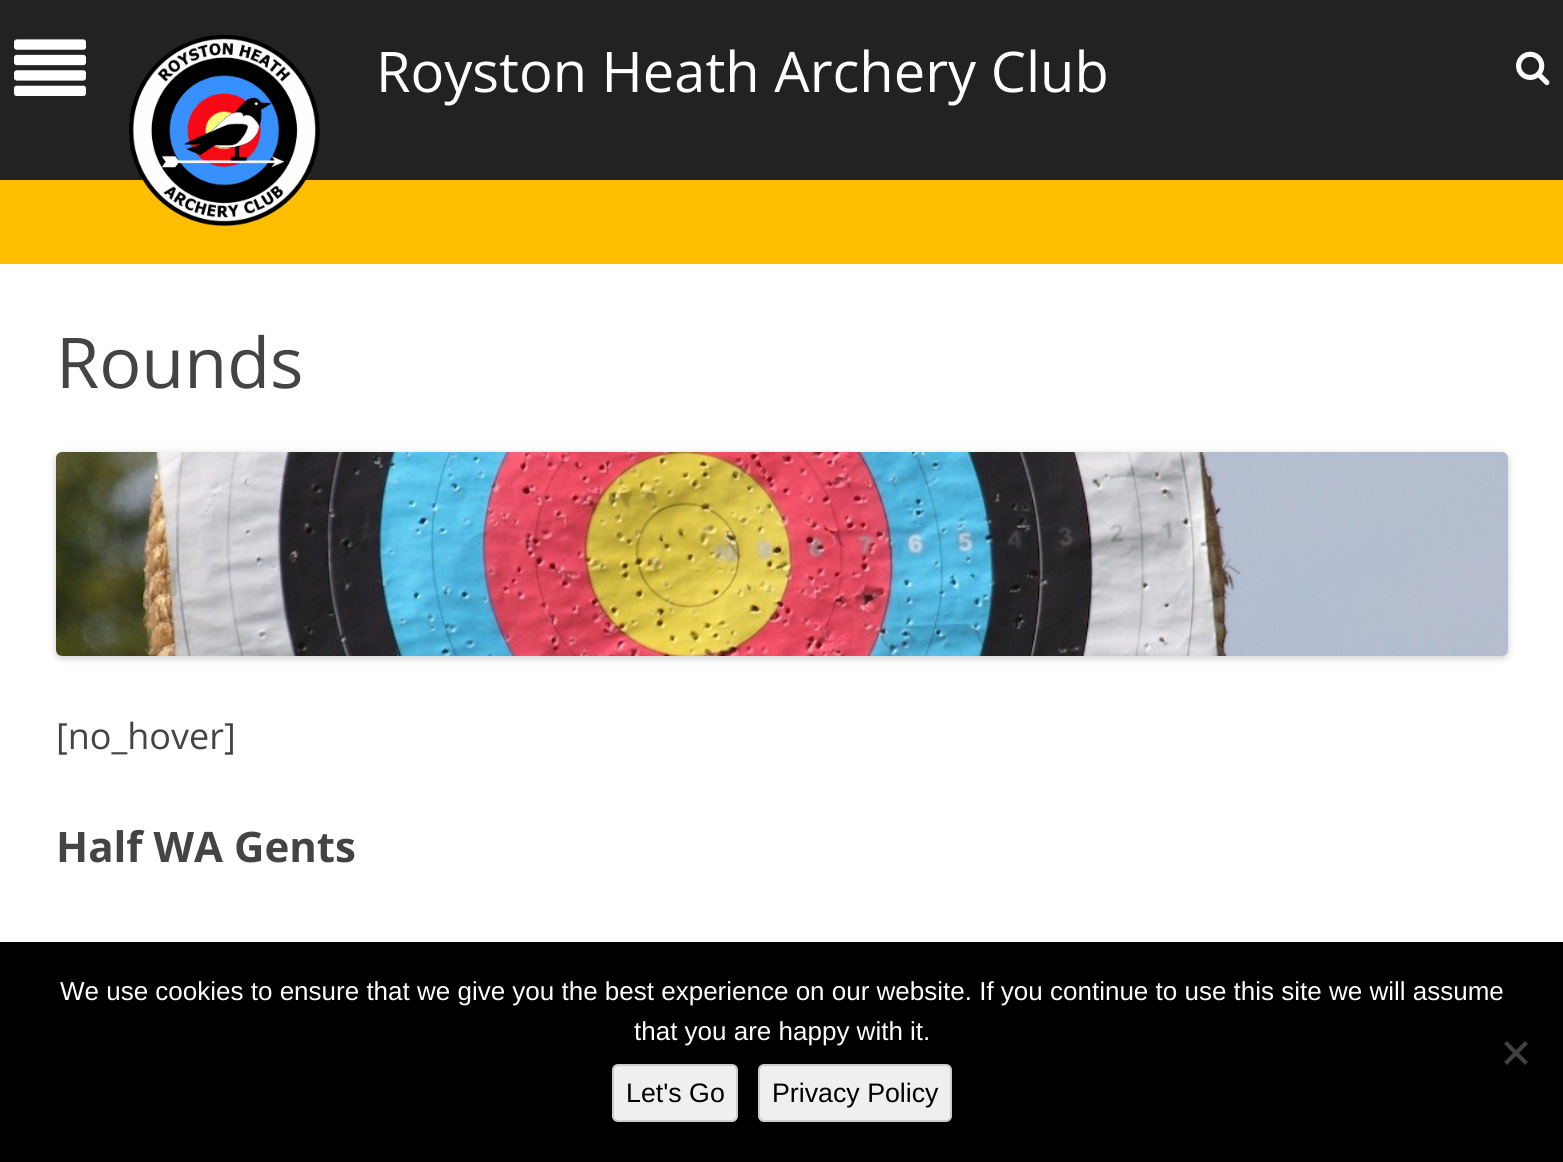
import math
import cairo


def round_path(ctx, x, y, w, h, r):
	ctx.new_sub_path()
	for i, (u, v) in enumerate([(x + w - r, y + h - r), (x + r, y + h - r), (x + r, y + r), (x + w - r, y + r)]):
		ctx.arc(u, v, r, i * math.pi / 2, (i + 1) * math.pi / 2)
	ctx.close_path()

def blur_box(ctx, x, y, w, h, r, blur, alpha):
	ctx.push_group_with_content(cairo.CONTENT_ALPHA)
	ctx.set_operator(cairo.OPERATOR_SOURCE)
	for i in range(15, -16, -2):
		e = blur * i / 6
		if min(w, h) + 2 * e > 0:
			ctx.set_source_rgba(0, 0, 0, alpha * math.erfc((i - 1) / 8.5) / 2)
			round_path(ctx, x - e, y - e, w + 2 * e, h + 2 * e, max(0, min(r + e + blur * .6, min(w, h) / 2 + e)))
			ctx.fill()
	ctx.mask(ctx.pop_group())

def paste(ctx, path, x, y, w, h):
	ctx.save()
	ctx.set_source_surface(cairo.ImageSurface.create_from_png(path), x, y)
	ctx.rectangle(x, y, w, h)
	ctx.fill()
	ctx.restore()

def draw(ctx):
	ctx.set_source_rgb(1, 0.749, 0)
	ctx.paint()
	ctx.set_source_rgb(0.133, 0.133, 0.133)
	ctx.rectangle(0, 0, 1563, 180)
	ctx.fill()
	paste(ctx, 'media/1.png', 14, 39, 72, 57)
	paste(ctx, 'media/2.png', 129, 34, 191, 192)
	ctx.select_font_face('Open Sans')
	ctx.set_font_size(56)
	ctx.set_source_rgb(1, 1, 1)
	ctx.move_to(376, 92)
	ctx.show_text('Royston Heath Archery Club')
	paste(ctx, 'media/3.png', 1516, 51, 34, 35)
	ctx.rectangle(0, 264, 1563, 678)
	ctx.fill()
	ctx.set_font_size(70)
	ctx.set_source_rgb(0.267, 0.267, 0.267)
	ctx.move_to(56, 388)
	ctx.show_text('Rounds')
	ctx.set_source_rgb(0, 0, 0)
	blur_box(ctx, 56, 454, 1452, 204, 6, 4, 0.2)
	paste(ctx, 'media/4.png', 56, 452, 1452, 204)
	ctx.set_font_size(36)
	ctx.set_source_rgb(0.267, 0.267, 0.267)
	ctx.move_to(56, 749)
	ctx.show_text('[no_hover]')
	ctx.select_font_face('Open Sans', cairo.FONT_SLANT_NORMAL, cairo.FONT_WEIGHT_BOLD)
	ctx.set_font_size(42)
	ctx.move_to(56, 862)
	ctx.show_text('Half WA Gents')
	ctx.set_source_rgb(0, 0, 0)
	ctx.rectangle(0, 942, 1563, 220)
	ctx.fill()
	ctx.select_font_face('Liberation Sans')
	ctx.set_font_size(26)
	ctx.set_source_rgb(1, 1, 1)
	ctx.move_to(60, 1000)
	ctx.show_text('We use cookies to ensure that we give you the best experience on our website. If you continue to use this site we will assume')
	ctx.move_to(634, 1040)
	ctx.show_text('that you are happy with it.')
	ctx.set_source_rgb(0.251, 0.251, 0.251)
	ctx.new_path()
	ctx.move_to(1525, 1041)
	ctx.line_to(1528, 1044)
	ctx.line_to(1507, 1065)
	ctx.line_to(1504, 1062)
	ctx.close_path()
	ctx.fill()
	ctx.new_path()
	ctx.move_to(1504, 1044)
	ctx.line_to(1507, 1041)
	ctx.line_to(1528, 1062)
	ctx.line_to(1525, 1065)
	ctx.close_path()
	ctx.fill()
	ctx.set_source_rgb(0.937, 0.937, 0.937)
	round_path(ctx, 613, 1065, 124, 56, 5)
	ctx.fill_preserve()
	ctx.set_source_rgb(0.8, 0.8, 0.8)
	ctx.stroke()
	ctx.set_font_size(26.75)
	ctx.set_source_rgb(0, 0, 0)
	ctx.move_to(626, 1102)
	ctx.show_text('Let\'s Go')
	ctx.set_source_rgb(0.937, 0.937, 0.937)
	round_path(ctx, 759, 1065, 192, 56, 5)
	ctx.fill_preserve()
	ctx.set_source_rgb(0.8, 0.8, 0.8)
	ctx.stroke()
	ctx.set_source_rgb(0, 0, 0)
	ctx.move_to(772, 1102)
	ctx.show_text('Privacy Policy')


surface = cairo.ImageSurface(cairo.FORMAT_RGB24, 1563, 1162)
ctx = cairo.Context(surface)
options = cairo.FontOptions()
options.set_hint_metrics(cairo.HINT_METRICS_OFF)
options.set_hint_style(cairo.HINT_STYLE_NONE)
ctx.set_font_options(options)
ctx.set_miter_limit(4)
draw(ctx)
surface.write_to_png('image.png')
